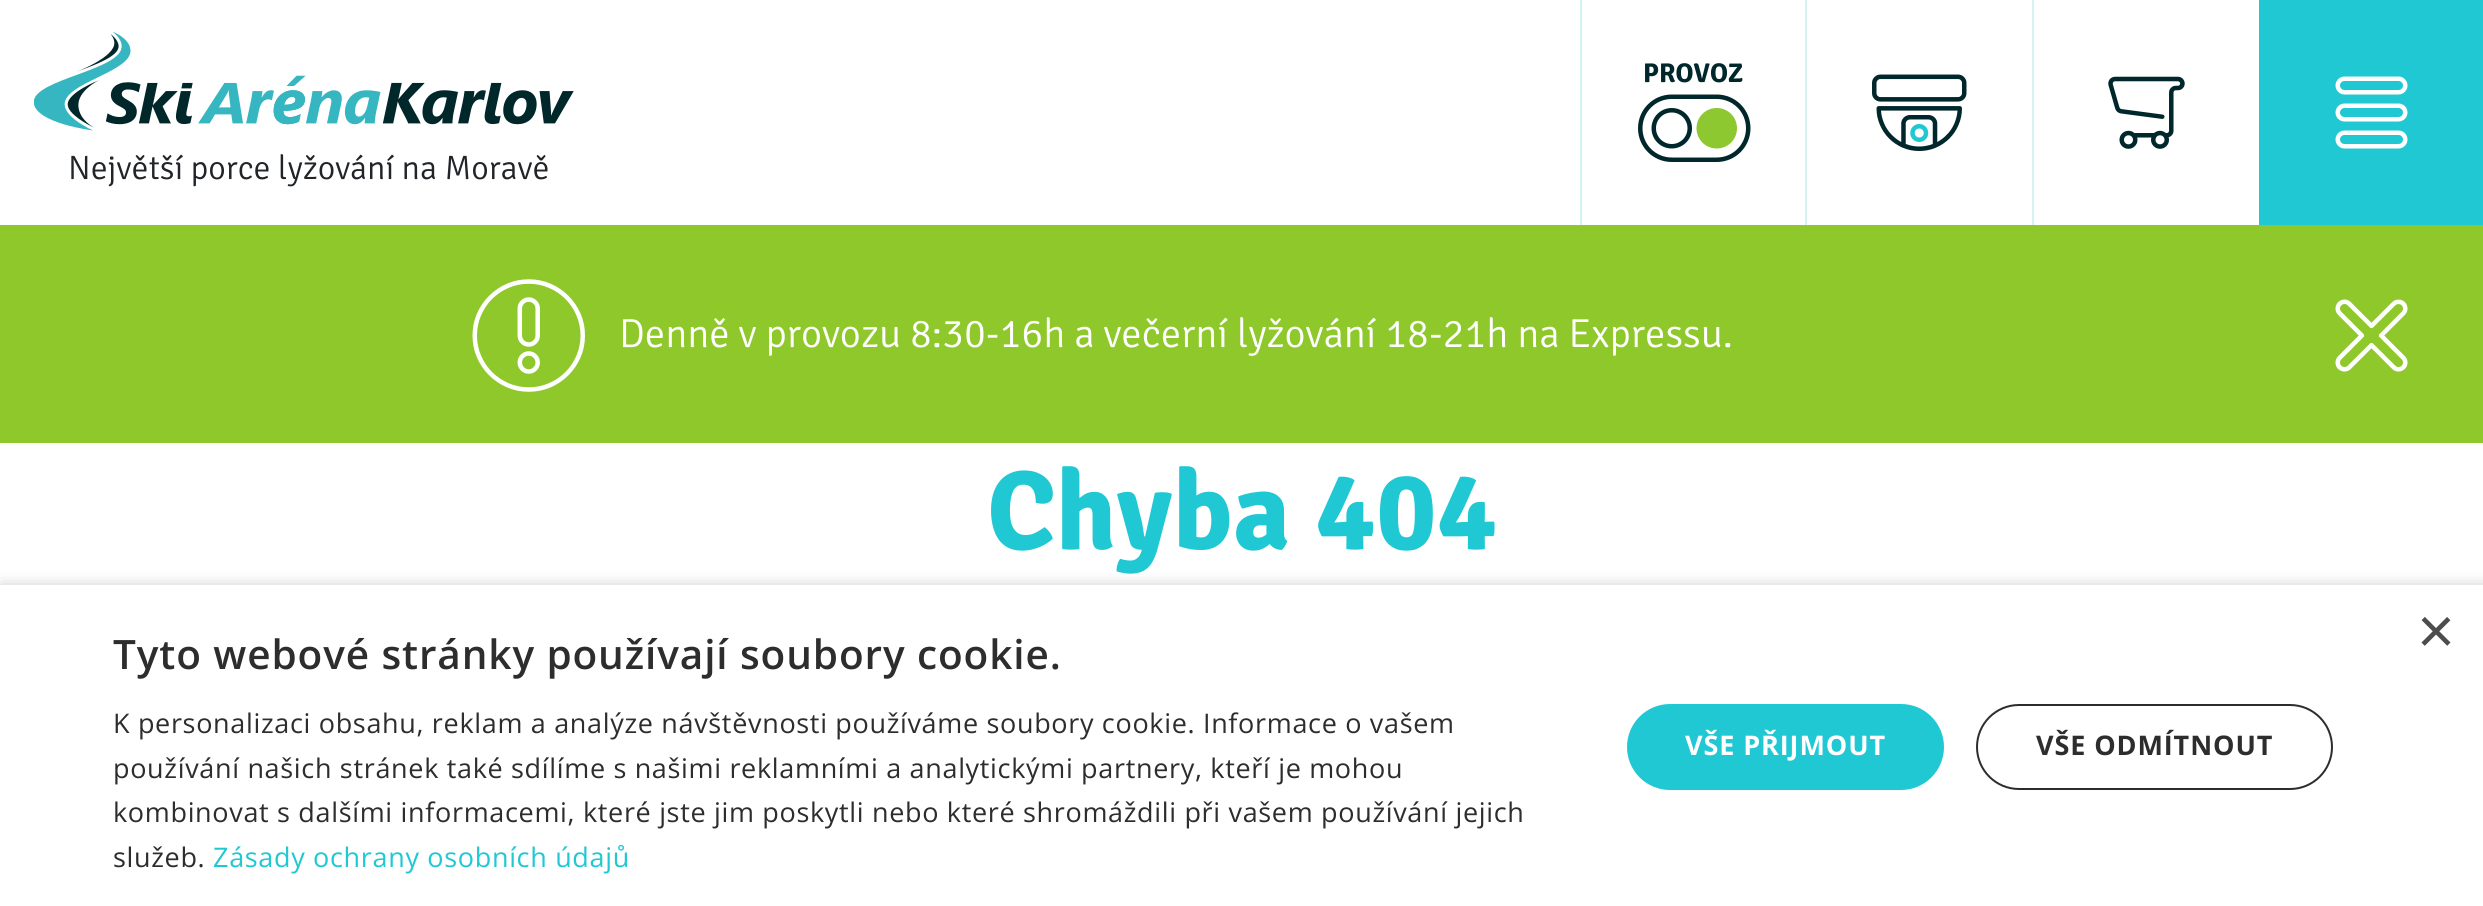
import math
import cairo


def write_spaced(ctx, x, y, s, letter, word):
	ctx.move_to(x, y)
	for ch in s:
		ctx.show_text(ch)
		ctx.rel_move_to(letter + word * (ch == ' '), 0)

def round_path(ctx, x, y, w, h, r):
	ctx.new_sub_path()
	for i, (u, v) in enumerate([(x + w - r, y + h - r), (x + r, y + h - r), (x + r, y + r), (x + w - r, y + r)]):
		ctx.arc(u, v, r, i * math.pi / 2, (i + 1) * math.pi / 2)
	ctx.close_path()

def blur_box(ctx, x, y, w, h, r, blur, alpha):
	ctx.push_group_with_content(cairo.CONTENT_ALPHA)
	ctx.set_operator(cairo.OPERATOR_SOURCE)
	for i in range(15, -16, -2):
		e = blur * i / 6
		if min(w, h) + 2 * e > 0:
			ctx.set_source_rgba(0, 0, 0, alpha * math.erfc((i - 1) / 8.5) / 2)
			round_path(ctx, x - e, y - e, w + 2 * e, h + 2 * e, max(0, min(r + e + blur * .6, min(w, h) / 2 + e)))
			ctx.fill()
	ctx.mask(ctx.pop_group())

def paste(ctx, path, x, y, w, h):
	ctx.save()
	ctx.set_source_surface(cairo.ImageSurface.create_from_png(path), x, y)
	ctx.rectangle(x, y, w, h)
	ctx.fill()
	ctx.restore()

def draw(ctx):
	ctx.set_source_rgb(1, 1, 1)
	ctx.paint()
	ctx.set_source_rgb(0.824, 0.957, 0.965)
	ctx.rectangle(1580, 0, 2, 225)
	ctx.fill()
	ctx.select_font_face('Signika', cairo.FONT_SLANT_NORMAL, cairo.FONT_WEIGHT_BOLD)
	ctx.set_font_size(27)
	ctx.set_source_rgb(0, 0.153, 0.169)
	ctx.move_to(1643, 82)
	ctx.show_text('PROVOZ')
	paste(ctx, 'media/1.png', 1638, 94, 113, 68)
	ctx.set_source_rgb(0.824, 0.957, 0.965)
	ctx.rectangle(1805, 0, 2, 225)
	ctx.fill()
	paste(ctx, 'media/2.png', 1872, 74, 95, 77)
	paste(ctx, 'media/3.png', 1910, 124, 19, 18)
	ctx.rectangle(2032, 0, 2, 225)
	ctx.fill()
	paste(ctx, 'media/4.png', 2108, 76, 77, 73)
	ctx.set_source_rgb(0.125, 0.784, 0.831)
	ctx.rectangle(2259, 0, 224, 225)
	ctx.fill()
	paste(ctx, 'media/5.png', 2335, 76, 73, 73)
	paste(ctx, 'media/6.png', 34, 32, 540, 99)
	ctx.select_font_face('Signika Light')
	ctx.set_font_size(33.75)
	ctx.set_source_rgb(0.129, 0.145, 0.161)
	ctx.move_to(68, 179)
	ctx.show_text('Největší porce lyžování na Moravě')
	ctx.set_source_rgb(0.557, 0.784, 0.169)
	ctx.rectangle(0, 225, 2483, 218)
	ctx.fill()
	paste(ctx, 'media/7.png', 472, 279, 113, 113)
	ctx.set_font_size(40.5)
	ctx.set_source_rgb(1, 1, 1)
	ctx.move_to(619, 347)
	ctx.show_text('Denně v provozu 8:30-16h a večerní lyžování 18-21h na Expressu.')
	paste(ctx, 'media/8.png', 2335, 299, 73, 73)
	ctx.select_font_face('Signika', cairo.FONT_SLANT_NORMAL, cairo.FONT_WEIGHT_BOLD)
	ctx.set_font_size(112.5)
	ctx.set_source_rgb(0.125, 0.784, 0.831)
	ctx.move_to(987, 549)
	ctx.show_text('Chyba 404')
	ctx.set_source_rgb(0, 0, 0)
	blur_box(ctx, 2, 590, 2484, 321, 0, 9, 0.35)
	ctx.set_source_rgb(1, 1, 1)
	ctx.rectangle(0, 585, 2483, 321)
	ctx.fill()
	ctx.select_font_face('Liberation Sans')
	ctx.set_font_size(65)
	ctx.set_source_rgb(0.302, 0.302, 0.302)
	ctx.move_to(2417, 653)
	ctx.show_text('×')
	ctx.select_font_face('Open Sans SemiBold')
	ctx.set_font_size(40.5)
	ctx.set_source_rgb(0.176, 0.176, 0.176)
	write_spaced(ctx, 113, 669, 'Tyto webové stránky používají soubory cookie.', 0.9, 0)
	ctx.select_font_face('Open Sans')
	ctx.set_font_size(27)
	for x, y, s in [
		(113, 733, 'K personalizaci obsahu, reklam a analýze návštěvnosti používáme soubory cookie. Informace o vašem'),
		(113, 778, 'používání našich stránek také sdílíme s našimi reklamními a analytickými partnery, kteří je mohou'),
		(113, 822, 'kombinovat s dalšími informacemi, které jste jim poskytli nebo které shromáždili při vašem používání jejich'),
		(113, 867, 'služeb.'),
	]:
		write_spaced(ctx, x, y, s, 0.67, 0)
	ctx.set_source_rgb(0.125, 0.784, 0.831)
	write_spaced(ctx, 213, 867, 'Zásady ochrany osobních údajů', 0.67, 0)
	round_path(ctx, 1627, 704, 317, 86, 43)
	ctx.fill()
	ctx.select_font_face('Open Sans', cairo.FONT_SLANT_NORMAL, cairo.FONT_WEIGHT_BOLD)
	ctx.set_source_rgb(1, 1, 1)
	write_spaced(ctx, 1685, 755, 'VŠE PŘIJMOUT', 0.9, 0)
	round_path(ctx, 1977, 705, 355, 84, 42)
	ctx.set_source_rgb(0.176, 0.176, 0.176)
	ctx.stroke()
	write_spaced(ctx, 2036, 755, 'VŠE ODMÍTNOUT', 0.9, 0)


surface = cairo.ImageSurface(cairo.FORMAT_RGB24, 2483, 906)
ctx = cairo.Context(surface)
options = cairo.FontOptions()
options.set_hint_metrics(cairo.HINT_METRICS_OFF)
options.set_hint_style(cairo.HINT_STYLE_NONE)
ctx.set_font_options(options)
ctx.set_miter_limit(4)
draw(ctx)
surface.write_to_png('image.png')
